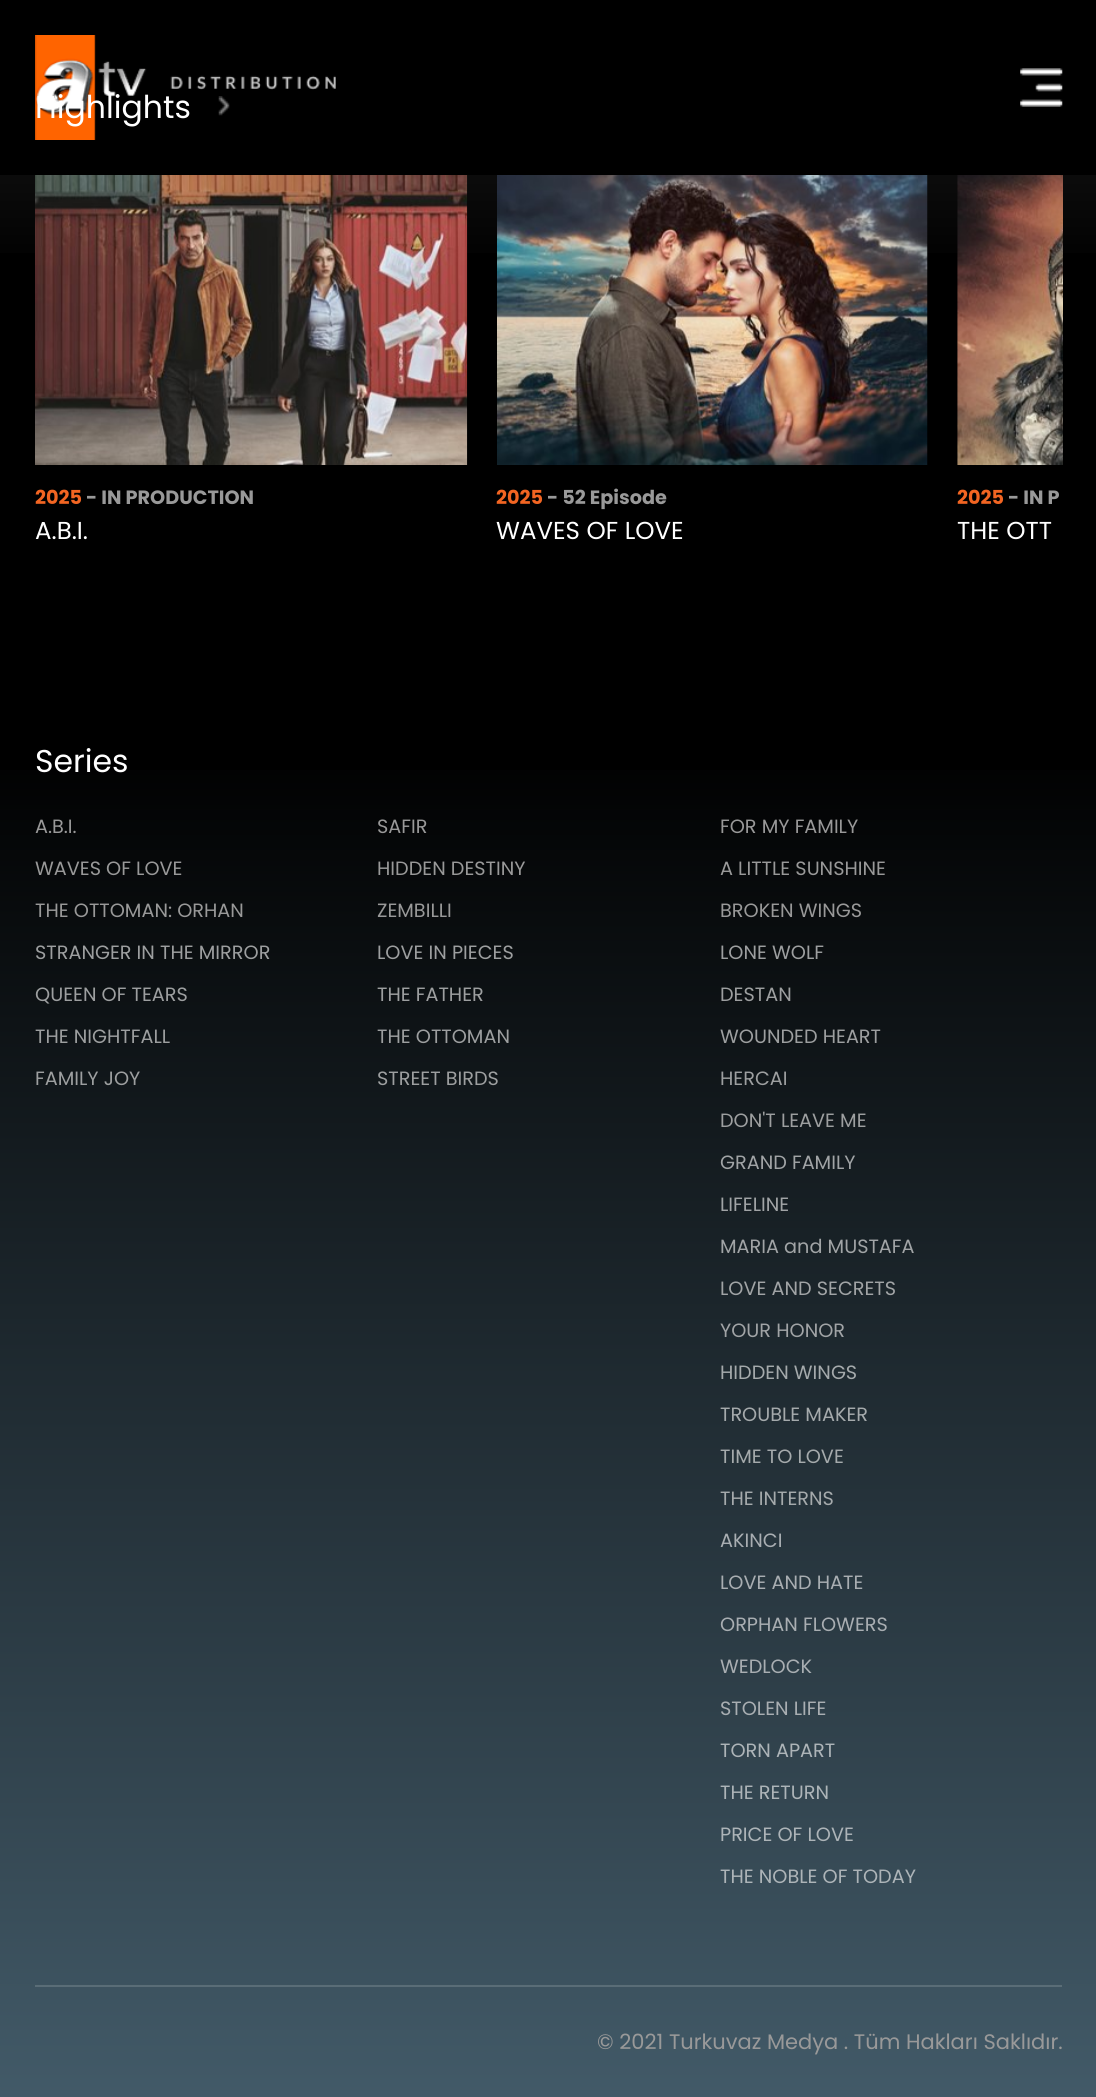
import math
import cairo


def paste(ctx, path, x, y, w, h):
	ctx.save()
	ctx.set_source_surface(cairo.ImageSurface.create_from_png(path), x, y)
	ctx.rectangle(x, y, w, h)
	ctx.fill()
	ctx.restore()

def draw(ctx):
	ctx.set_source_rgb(0, 0, 0)
	ctx.paint()
	paste(ctx, 'media/1.png', 35, 35, 301, 105)
	paste(ctx, 'media/2.png', 1020, 68, 43, 39)
	ctx.select_font_face('Poppins')
	ctx.set_font_size(31.5)
	ctx.set_source_rgb(1, 1, 1)
	ctx.move_to(35, 118)
	ctx.show_text('Highlights')
	paste(ctx, 'media/3.png', 218, 96, 12, 20)
	gradient = cairo.LinearGradient(549, 274, 549, -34)
	gradient.add_color_stop_rgba(0, 0, 0, 0, 1)
	gradient.add_color_stop_rgba(1, 0.141, 0.141, 0.141, 1)
	ctx.set_source(gradient)
	ctx.rectangle(0, 175, 1096, 78)
	ctx.fill()
	paste(ctx, 'media/4.png', 35, 175, 433, 290)
	ctx.select_font_face('Poppins', cairo.FONT_SLANT_NORMAL, cairo.FONT_WEIGHT_BOLD)
	ctx.set_font_size(19.25)
	ctx.set_source_rgb(0.949, 0.396, 0.133)
	ctx.move_to(35, 504)
	ctx.show_text('2025')
	ctx.set_source_rgb(0.6, 0.6, 0.6)
	ctx.move_to(86, 504)
	ctx.show_text('- IN PRODUCTION')
	ctx.select_font_face('Poppins')
	ctx.set_font_size(24.5)
	ctx.set_source_rgb(1, 1, 1)
	ctx.move_to(35, 539)
	ctx.show_text('A.B.I.')
	paste(ctx, 'media/5.png', 497, 175, 431, 290)
	ctx.select_font_face('Poppins', cairo.FONT_SLANT_NORMAL, cairo.FONT_WEIGHT_BOLD)
	ctx.set_font_size(19.25)
	ctx.set_source_rgb(0.949, 0.396, 0.133)
	ctx.move_to(496, 504)
	ctx.show_text('2025')
	ctx.set_source_rgb(0.6, 0.6, 0.6)
	ctx.move_to(547, 504)
	ctx.show_text('- 52 Episode')
	ctx.select_font_face('Poppins')
	ctx.set_font_size(24.5)
	ctx.set_source_rgb(1, 1, 1)
	ctx.move_to(496, 539)
	ctx.show_text('WAVES OF LOVE')
	paste(ctx, 'media/6.png', 957, 175, 106, 290)
	ctx.select_font_face('Poppins', cairo.FONT_SLANT_NORMAL, cairo.FONT_WEIGHT_BOLD)
	ctx.set_font_size(19.25)
	ctx.set_source_rgb(0.949, 0.396, 0.133)
	ctx.move_to(957, 504)
	ctx.show_text('2025')
	ctx.set_source_rgb(0.6, 0.6, 0.6)
	ctx.move_to(1008, 504)
	ctx.show_text('- IN P')
	ctx.select_font_face('Poppins')
	ctx.set_font_size(24.5)
	ctx.set_source_rgb(1, 1, 1)
	ctx.move_to(957, 539)
	ctx.show_text('THE OTT')
	gradient = cairo.LinearGradient(549, 737, 549, 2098)
	gradient.add_color_stop_rgba(0, 0, 0, 0, 1)
	gradient.add_color_stop_rgba(1, 0.259, 0.353, 0.408, 1)
	ctx.set_source(gradient)
	ctx.rectangle(0, 770, 1096, 1327)
	ctx.fill()
	ctx.set_source_rgb(0.353, 0.427, 0.467)
	ctx.rectangle(35, 1985, 1027, 2)
	ctx.fill()
	ctx.set_font_size(31.5)
	ctx.set_source_rgb(1, 1, 1)
	ctx.move_to(35, 772)
	ctx.show_text('Series')
	ctx.set_font_size(19.25)
	ctx.set_source_rgb(0.6, 0.6, 0.6)
	for x, y, s in [
		(35, 833, 'A.B.I.'),
		(35, 875, 'WAVES OF LOVE'),
		(35, 917, 'THE OTTOMAN: ORHAN'),
	]:
		ctx.move_to(x, y)
		ctx.show_text(s)
	ctx.set_source_rgb(0.616, 0.624, 0.627)
	for x, y, s in [
		(35, 959, 'STRANGER IN THE MIRROR'),
		(35, 1001, 'QUEEN OF TEARS'),
		(35, 1043, 'THE NIGHTFALL'),
		(35, 1085, 'FAMILY JOY'),
	]:
		ctx.move_to(x, y)
		ctx.show_text(s)
	ctx.set_source_rgb(0.6, 0.6, 0.6)
	for x, y, s in [
		(377, 833, 'SAFIR'),
		(377, 875, 'HIDDEN DESTINY'),
		(377, 917, 'ZEMBILLI'),
	]:
		ctx.move_to(x, y)
		ctx.show_text(s)
	ctx.set_source_rgb(0.616, 0.624, 0.627)
	for x, y, s in [
		(377, 959, 'LOVE IN PIECES'),
		(377, 1001, 'THE FATHER'),
		(377, 1043, 'THE OTTOMAN'),
		(377, 1085, 'STREET BIRDS'),
	]:
		ctx.move_to(x, y)
		ctx.show_text(s)
	ctx.set_source_rgb(0.6, 0.6, 0.6)
	for x, y, s in [
		(720, 833, 'FOR MY FAMILY'),
		(720, 875, 'A LITTLE SUNSHINE'),
		(720, 917, 'BROKEN WINGS'),
	]:
		ctx.move_to(x, y)
		ctx.show_text(s)
	ctx.set_source_rgb(0.616, 0.624, 0.627)
	for x, y, s in [
		(720, 959, 'LONE WOLF'),
		(720, 1001, 'DESTAN'),
		(720, 1043, 'WOUNDED HEART'),
		(720, 1085, 'HERCAI'),
		(720, 1127, 'DON\'T LEAVE ME'),
	]:
		ctx.move_to(x, y)
		ctx.show_text(s)
	ctx.set_source_rgb(0.631, 0.643, 0.651)
	for x, y, s in [
		(720, 1169, 'GRAND FAMILY'),
		(720, 1211, 'LIFELINE'),
		(720, 1253, 'MARIA and MUSTAFA'),
		(720, 1295, 'LOVE AND SECRETS'),
		(720, 1337, 'YOUR HONOR'),
	]:
		ctx.move_to(x, y)
		ctx.show_text(s)
	ctx.set_source_rgb(0.647, 0.667, 0.675)
	for x, y, s in [
		(720, 1379, 'HIDDEN WINGS'),
		(720, 1421, 'TROUBLE MAKER'),
		(720, 1463, 'TIME TO LOVE'),
		(720, 1505, 'THE INTERNS'),
	]:
		ctx.move_to(x, y)
		ctx.show_text(s)
	ctx.set_source_rgb(0.663, 0.682, 0.698)
	for x, y, s in [
		(720, 1547, 'AKINCI'),
		(720, 1589, 'LOVE AND HATE'),
		(720, 1631, 'ORPHAN FLOWERS'),
		(720, 1673, 'WEDLOCK'),
		(720, 1715, 'STOLEN LIFE'),
	]:
		ctx.move_to(x, y)
		ctx.show_text(s)
	ctx.set_source_rgb(0.678, 0.706, 0.722)
	for x, y, s in [
		(720, 1757, 'TORN APART'),
		(720, 1799, 'THE RETURN'),
		(720, 1841, 'PRICE OF LOVE'),
		(720, 1883, 'THE NOBLE OF TODAY'),
	]:
		ctx.move_to(x, y)
		ctx.show_text(s)
	ctx.set_font_size(21)
	ctx.set_source_rgb(0.6, 0.6, 0.6)
	ctx.move_to(597, 2049)
	ctx.show_text('© 2021 Turkuvaz Medya . Tüm Hakları Saklıdır.')


surface = cairo.ImageSurface(cairo.FORMAT_RGB24, 1096, 2097)
ctx = cairo.Context(surface)
options = cairo.FontOptions()
options.set_hint_metrics(cairo.HINT_METRICS_OFF)
options.set_hint_style(cairo.HINT_STYLE_NONE)
ctx.set_font_options(options)
ctx.set_miter_limit(4)
draw(ctx)
surface.write_to_png('image.png')
